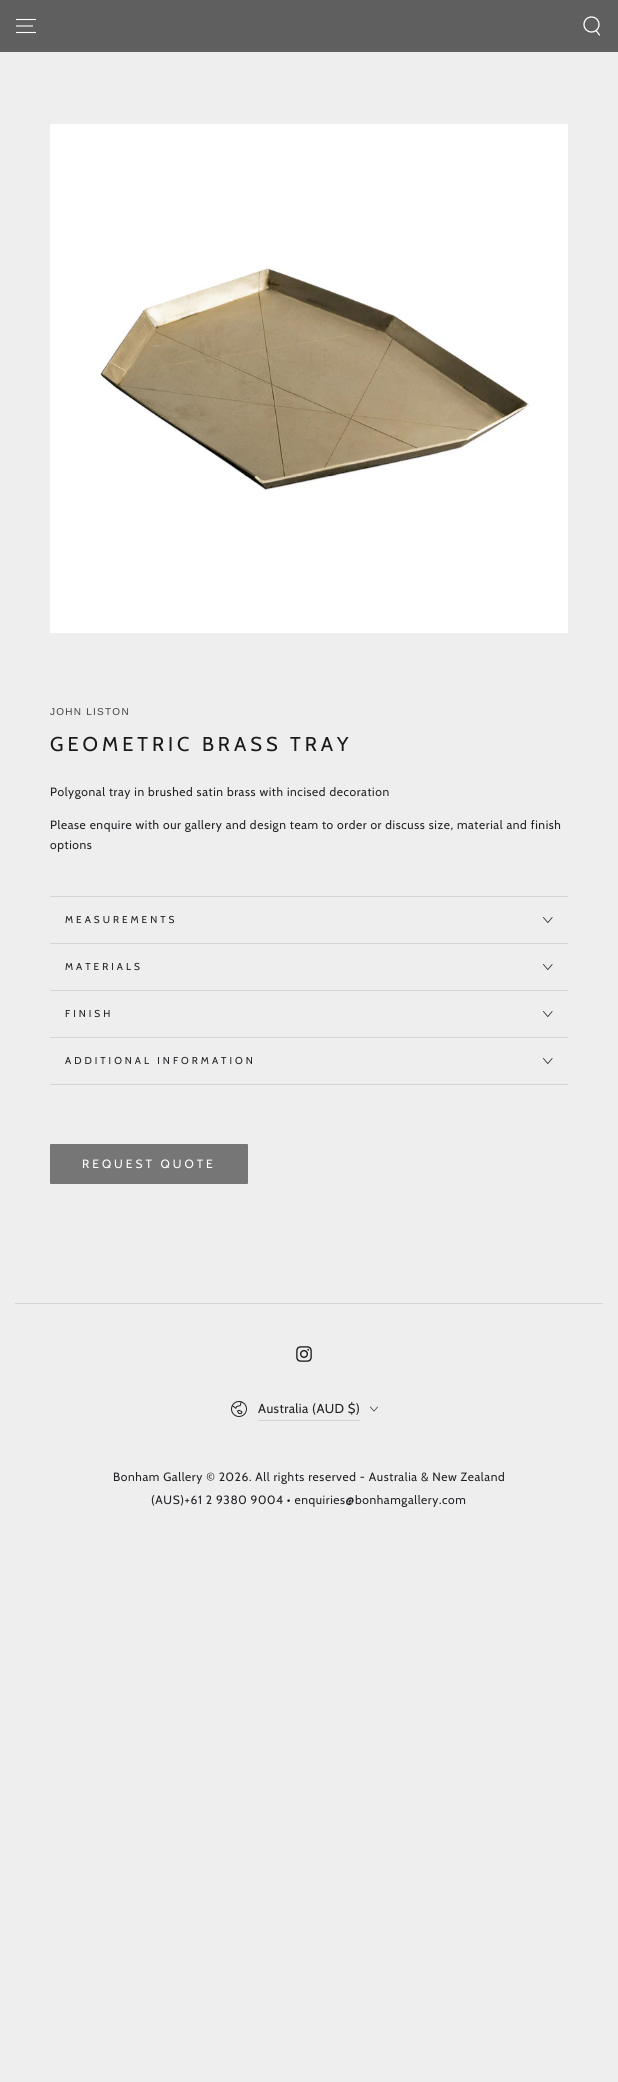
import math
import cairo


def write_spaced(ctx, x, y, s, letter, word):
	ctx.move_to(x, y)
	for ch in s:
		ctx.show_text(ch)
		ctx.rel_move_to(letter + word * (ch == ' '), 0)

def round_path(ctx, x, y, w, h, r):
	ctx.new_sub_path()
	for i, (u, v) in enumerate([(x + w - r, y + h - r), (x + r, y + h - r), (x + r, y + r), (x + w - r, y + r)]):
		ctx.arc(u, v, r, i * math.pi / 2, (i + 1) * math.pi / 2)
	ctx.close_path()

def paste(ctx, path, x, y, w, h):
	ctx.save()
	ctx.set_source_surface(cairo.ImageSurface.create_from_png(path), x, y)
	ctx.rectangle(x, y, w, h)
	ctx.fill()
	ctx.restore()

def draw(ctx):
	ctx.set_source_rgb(0.933, 0.933, 0.933)
	ctx.paint()
	ctx.set_source_rgb(0.373, 0.373, 0.373)
	ctx.rectangle(0, 0, 618, 52)
	ctx.fill()
	ctx.new_path()
	ctx.move_to(16, 32.5)
	ctx.line_to(36, 32.5)
	ctx.move_to(16, 26)
	ctx.line_to(33, 26)
	ctx.move_to(16, 19.5)
	ctx.line_to(36, 19.5)
	ctx.set_source_rgb(1, 1, 1)
	ctx.set_line_width(1.1)
	ctx.stroke()
	ctx.arc(591.5, 24.5, 7.5, 0, 2 * math.pi)
	ctx.set_line_width(1.3)
	ctx.stroke()
	ctx.new_path()
	ctx.move_to(596, 30.5)
	ctx.line_to(599.5, 35)
	ctx.set_line_cap(cairo.LINE_CAP_ROUND)
	ctx.stroke()
	paste(ctx, 'media/1.png', 50, 124, 518, 509)
	ctx.select_font_face('Liberation Sans')
	ctx.set_font_size(10)
	ctx.set_source_rgb(0.267, 0.267, 0.267)
	write_spaced(ctx, 50, 715, 'JOHN LISTON', 1.25, 0)
	ctx.select_font_face('Cabin')
	ctx.set_font_size(20)
	ctx.set_source_rgb(0.102, 0.106, 0.094)
	write_spaced(ctx, 50, 751, 'GEOMETRIC BRASS TRAY', 4, 0)
	ctx.set_font_size(12)
	ctx.set_source_rgb(0.129, 0.137, 0.149)
	for x, y, s in [
		(50, 796, 'Polygonal tray in brushed satin brass with incised decoration'),
		(50, 829, 'Please enquire with our gallery and design team to order or discuss size, material and finish'),
		(50, 849, 'options'),
	]:
		write_spaced(ctx, x, y, s, 0.6, 0)
	ctx.set_source_rgb(0.824, 0.835, 0.851)
	ctx.rectangle(50, 896, 518, 1)
	ctx.fill()
	ctx.rectangle(50, 943, 518, 1)
	ctx.fill()
	ctx.set_font_size(10)
	ctx.set_source_rgb(0.129, 0.137, 0.149)
	write_spaced(ctx, 65, 923, 'MEASUREMENTS', 3, 0)
	paste(ctx, 'media/2.png', 543, 917, 10, 6)
	ctx.set_source_rgb(0.824, 0.835, 0.851)
	ctx.rectangle(50, 990, 518, 1)
	ctx.fill()
	ctx.set_source_rgb(0.129, 0.137, 0.149)
	write_spaced(ctx, 65, 970, 'MATERIALS', 3, 0)
	paste(ctx, 'media/2.png', 543, 964, 10, 6)
	ctx.set_source_rgb(0.824, 0.835, 0.851)
	ctx.rectangle(50, 1037, 518, 1)
	ctx.fill()
	ctx.set_source_rgb(0.129, 0.137, 0.149)
	write_spaced(ctx, 65, 1017, 'FINISH', 3, 0)
	paste(ctx, 'media/2.png', 543, 1011, 10, 6)
	ctx.set_source_rgb(0.824, 0.835, 0.851)
	ctx.rectangle(50, 1084, 518, 1)
	ctx.fill()
	ctx.set_source_rgb(0.129, 0.137, 0.149)
	write_spaced(ctx, 65, 1064, 'ADDITIONAL INFORMATION', 3, 0)
	paste(ctx, 'media/2.png', 543, 1058, 10, 6)
	ctx.set_source_rgb(0.463, 0.463, 0.463)
	round_path(ctx, 50, 1144, 198, 40, 1)
	ctx.fill()
	ctx.set_font_size(12)
	ctx.set_source_rgb(1, 1, 1)
	write_spaced(ctx, 82, 1168, 'REQUEST QUOTE', 3, 0)
	ctx.set_source_rgb(0.824, 0.835, 0.851)
	ctx.rectangle(15, 1303, 588, 1)
	ctx.fill()
	paste(ctx, 'media/3.png', 296, 1346, 16, 16)
	paste(ctx, 'media/4.png', 231, 1401, 16, 16)
	ctx.rectangle(258, 1420, 102, 1)
	ctx.fill()
	ctx.set_font_size(13)
	ctx.set_source_rgb(0.129, 0.137, 0.149)
	write_spaced(ctx, 258, 1413, 'Australia (AUD $)', 0.4, 0)
	paste(ctx, 'media/5.png', 370, 1406, 8, 6)
	ctx.set_font_size(12)
	write_spaced(ctx, 113, 1481, 'Bonham Gallery © 2026. All rights reserved - Australia & New Zealand', 0.6, 0)
	write_spaced(ctx, 151, 1504, '(AUS)+61 2 9380 9004 • enquiries@bonhamgallery.com', 0.6, 0)


surface = cairo.ImageSurface(cairo.FORMAT_RGB24, 618, 2082)
ctx = cairo.Context(surface)
options = cairo.FontOptions()
options.set_hint_metrics(cairo.HINT_METRICS_OFF)
options.set_hint_style(cairo.HINT_STYLE_NONE)
ctx.set_font_options(options)
ctx.set_miter_limit(4)
draw(ctx)
surface.write_to_png('image.png')
